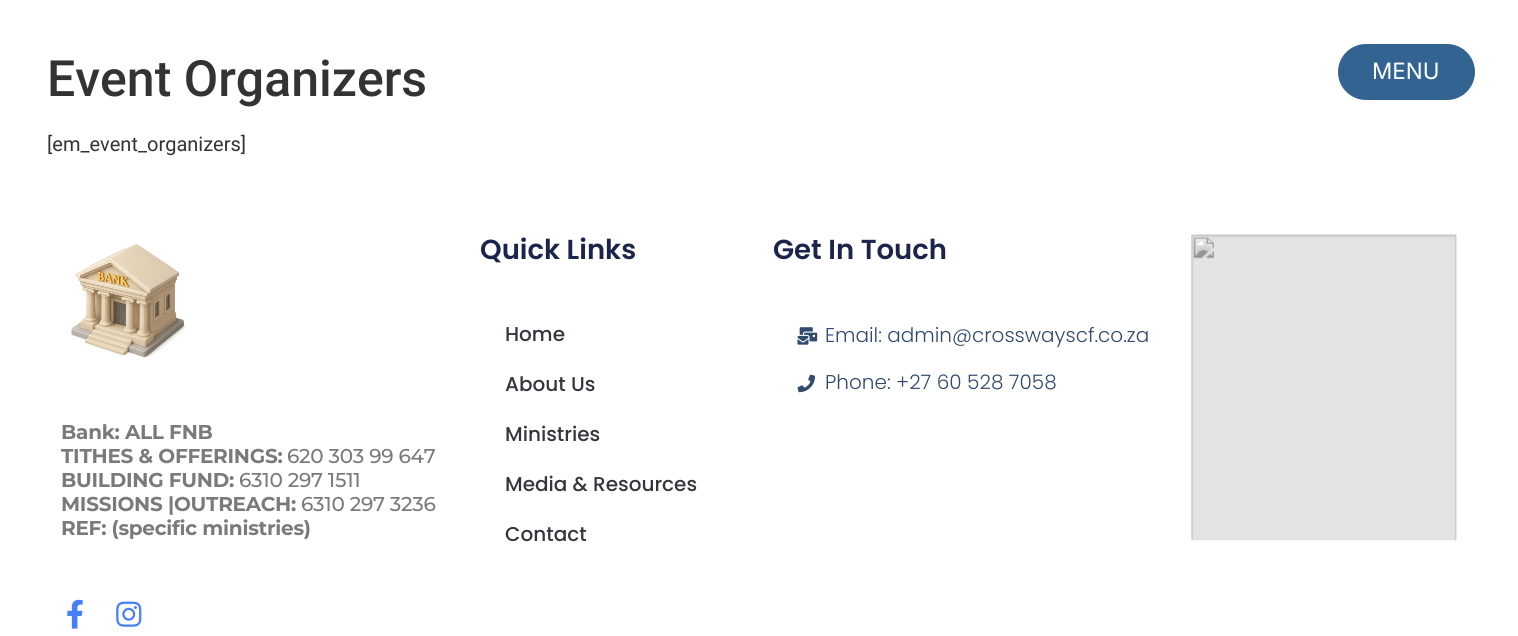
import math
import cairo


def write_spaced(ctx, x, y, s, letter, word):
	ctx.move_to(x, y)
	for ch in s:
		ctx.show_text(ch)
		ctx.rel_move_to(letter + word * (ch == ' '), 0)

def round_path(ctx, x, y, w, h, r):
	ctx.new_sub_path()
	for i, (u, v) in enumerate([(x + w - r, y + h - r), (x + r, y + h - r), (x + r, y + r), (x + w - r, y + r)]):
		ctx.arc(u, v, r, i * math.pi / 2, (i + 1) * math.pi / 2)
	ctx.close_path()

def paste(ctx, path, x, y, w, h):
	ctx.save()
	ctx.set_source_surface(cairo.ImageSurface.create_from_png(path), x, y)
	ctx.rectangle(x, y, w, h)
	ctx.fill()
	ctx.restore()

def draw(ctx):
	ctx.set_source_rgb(1, 1, 1)
	ctx.paint()
	ctx.select_font_face('Roboto Medium')
	ctx.set_font_size(50)
	ctx.set_source_rgb(0.2, 0.2, 0.2)
	ctx.move_to(47, 96)
	ctx.show_text('Event Organizers')
	ctx.select_font_face('Roboto')
	ctx.set_font_size(20)
	ctx.move_to(47, 151)
	ctx.show_text('[em_event_organizers]')
	ctx.set_source_rgb(0.2, 0.388, 0.569)
	round_path(ctx, 1338, 44, 137, 56, 28)
	ctx.fill()
	ctx.select_font_face('Inter')
	ctx.set_font_size(22.5)
	ctx.set_source_rgb(1, 1, 1)
	ctx.move_to(1372, 79)
	ctx.show_text('MENU')
	ctx.select_font_face('Poppins SemiBold')
	ctx.set_font_size(27.5)
	ctx.set_source_rgb(0.11, 0.141, 0.294)
	ctx.move_to(480, 259)
	ctx.show_text('Quick Links')
	ctx.select_font_face('Poppins Medium')
	ctx.set_font_size(20)
	ctx.set_source_rgb(0.2, 0.216, 0.239)
	for x, y, s in [
		(505, 341, 'Home'),
		(505, 391, 'About Us'),
		(505, 441, 'Ministries'),
		(505, 491, 'Media & Resources'),
		(505, 541, 'Contact'),
	]:
		ctx.move_to(x, y)
		ctx.show_text(s)
	ctx.select_font_face('Poppins SemiBold')
	ctx.set_font_size(27.5)
	ctx.set_source_rgb(0.11, 0.141, 0.294)
	ctx.move_to(773, 259)
	ctx.show_text('Get In Touch')
	paste(ctx, 'media/1.png', 797, 327, 21, 18)
	ctx.select_font_face('Poppins Light')
	ctx.set_font_size(20)
	ctx.set_source_rgb(0.196, 0.29, 0.427)
	ctx.move_to(825, 342)
	ctx.show_text('Email: admin@crosswayscf.co.za')
	paste(ctx, 'media/2.png', 797, 374, 18, 19)
	ctx.move_to(825, 389)
	ctx.show_text('Phone: +27 60 528 7058')
	paste(ctx, 'media/3.png', 1191, 234, 266, 307)
	paste(ctx, 'media/4.png', 71, 244, 115, 114)
	ctx.select_font_face('Montserrat', cairo.FONT_SLANT_NORMAL, cairo.FONT_WEIGHT_BOLD)
	ctx.set_source_rgb(0.478, 0.478, 0.478)
	write_spaced(ctx, 61, 439, 'Bank: ALL FNB', -0.25, 0)
	write_spaced(ctx, 61, 463, 'TITHES & OFFERINGS:', -0.25, 0)
	ctx.select_font_face('Montserrat Medium')
	write_spaced(ctx, 287, 463, '620 303 99 647', -0.25, 0)
	ctx.select_font_face('Montserrat', cairo.FONT_SLANT_NORMAL, cairo.FONT_WEIGHT_BOLD)
	write_spaced(ctx, 61, 487, 'BUILDING FUND:', -0.25, 0)
	ctx.select_font_face('Montserrat Medium')
	write_spaced(ctx, 239, 487, '6310 297 1511', -0.25, 0)
	ctx.select_font_face('Montserrat', cairo.FONT_SLANT_NORMAL, cairo.FONT_WEIGHT_BOLD)
	write_spaced(ctx, 61, 511, 'MISSIONS |OUTREACH:', -0.25, 0)
	ctx.select_font_face('Montserrat Medium')
	write_spaced(ctx, 301, 511, '6310 297 3236', -0.25, 0)
	ctx.select_font_face('Montserrat', cairo.FONT_SLANT_NORMAL, cairo.FONT_WEIGHT_BOLD)
	write_spaced(ctx, 61, 535, 'REF: (specific ministries)', -0.25, 0)
	paste(ctx, 'media/5.png', 67, 599, 16, 30)
	paste(ctx, 'media/6.png', 116, 601, 26, 26)


surface = cairo.ImageSurface(cairo.FORMAT_RGB24, 1518, 636)
ctx = cairo.Context(surface)
options = cairo.FontOptions()
options.set_hint_metrics(cairo.HINT_METRICS_OFF)
options.set_hint_style(cairo.HINT_STYLE_NONE)
ctx.set_font_options(options)
ctx.set_miter_limit(4)
draw(ctx)
surface.write_to_png('image.png')
